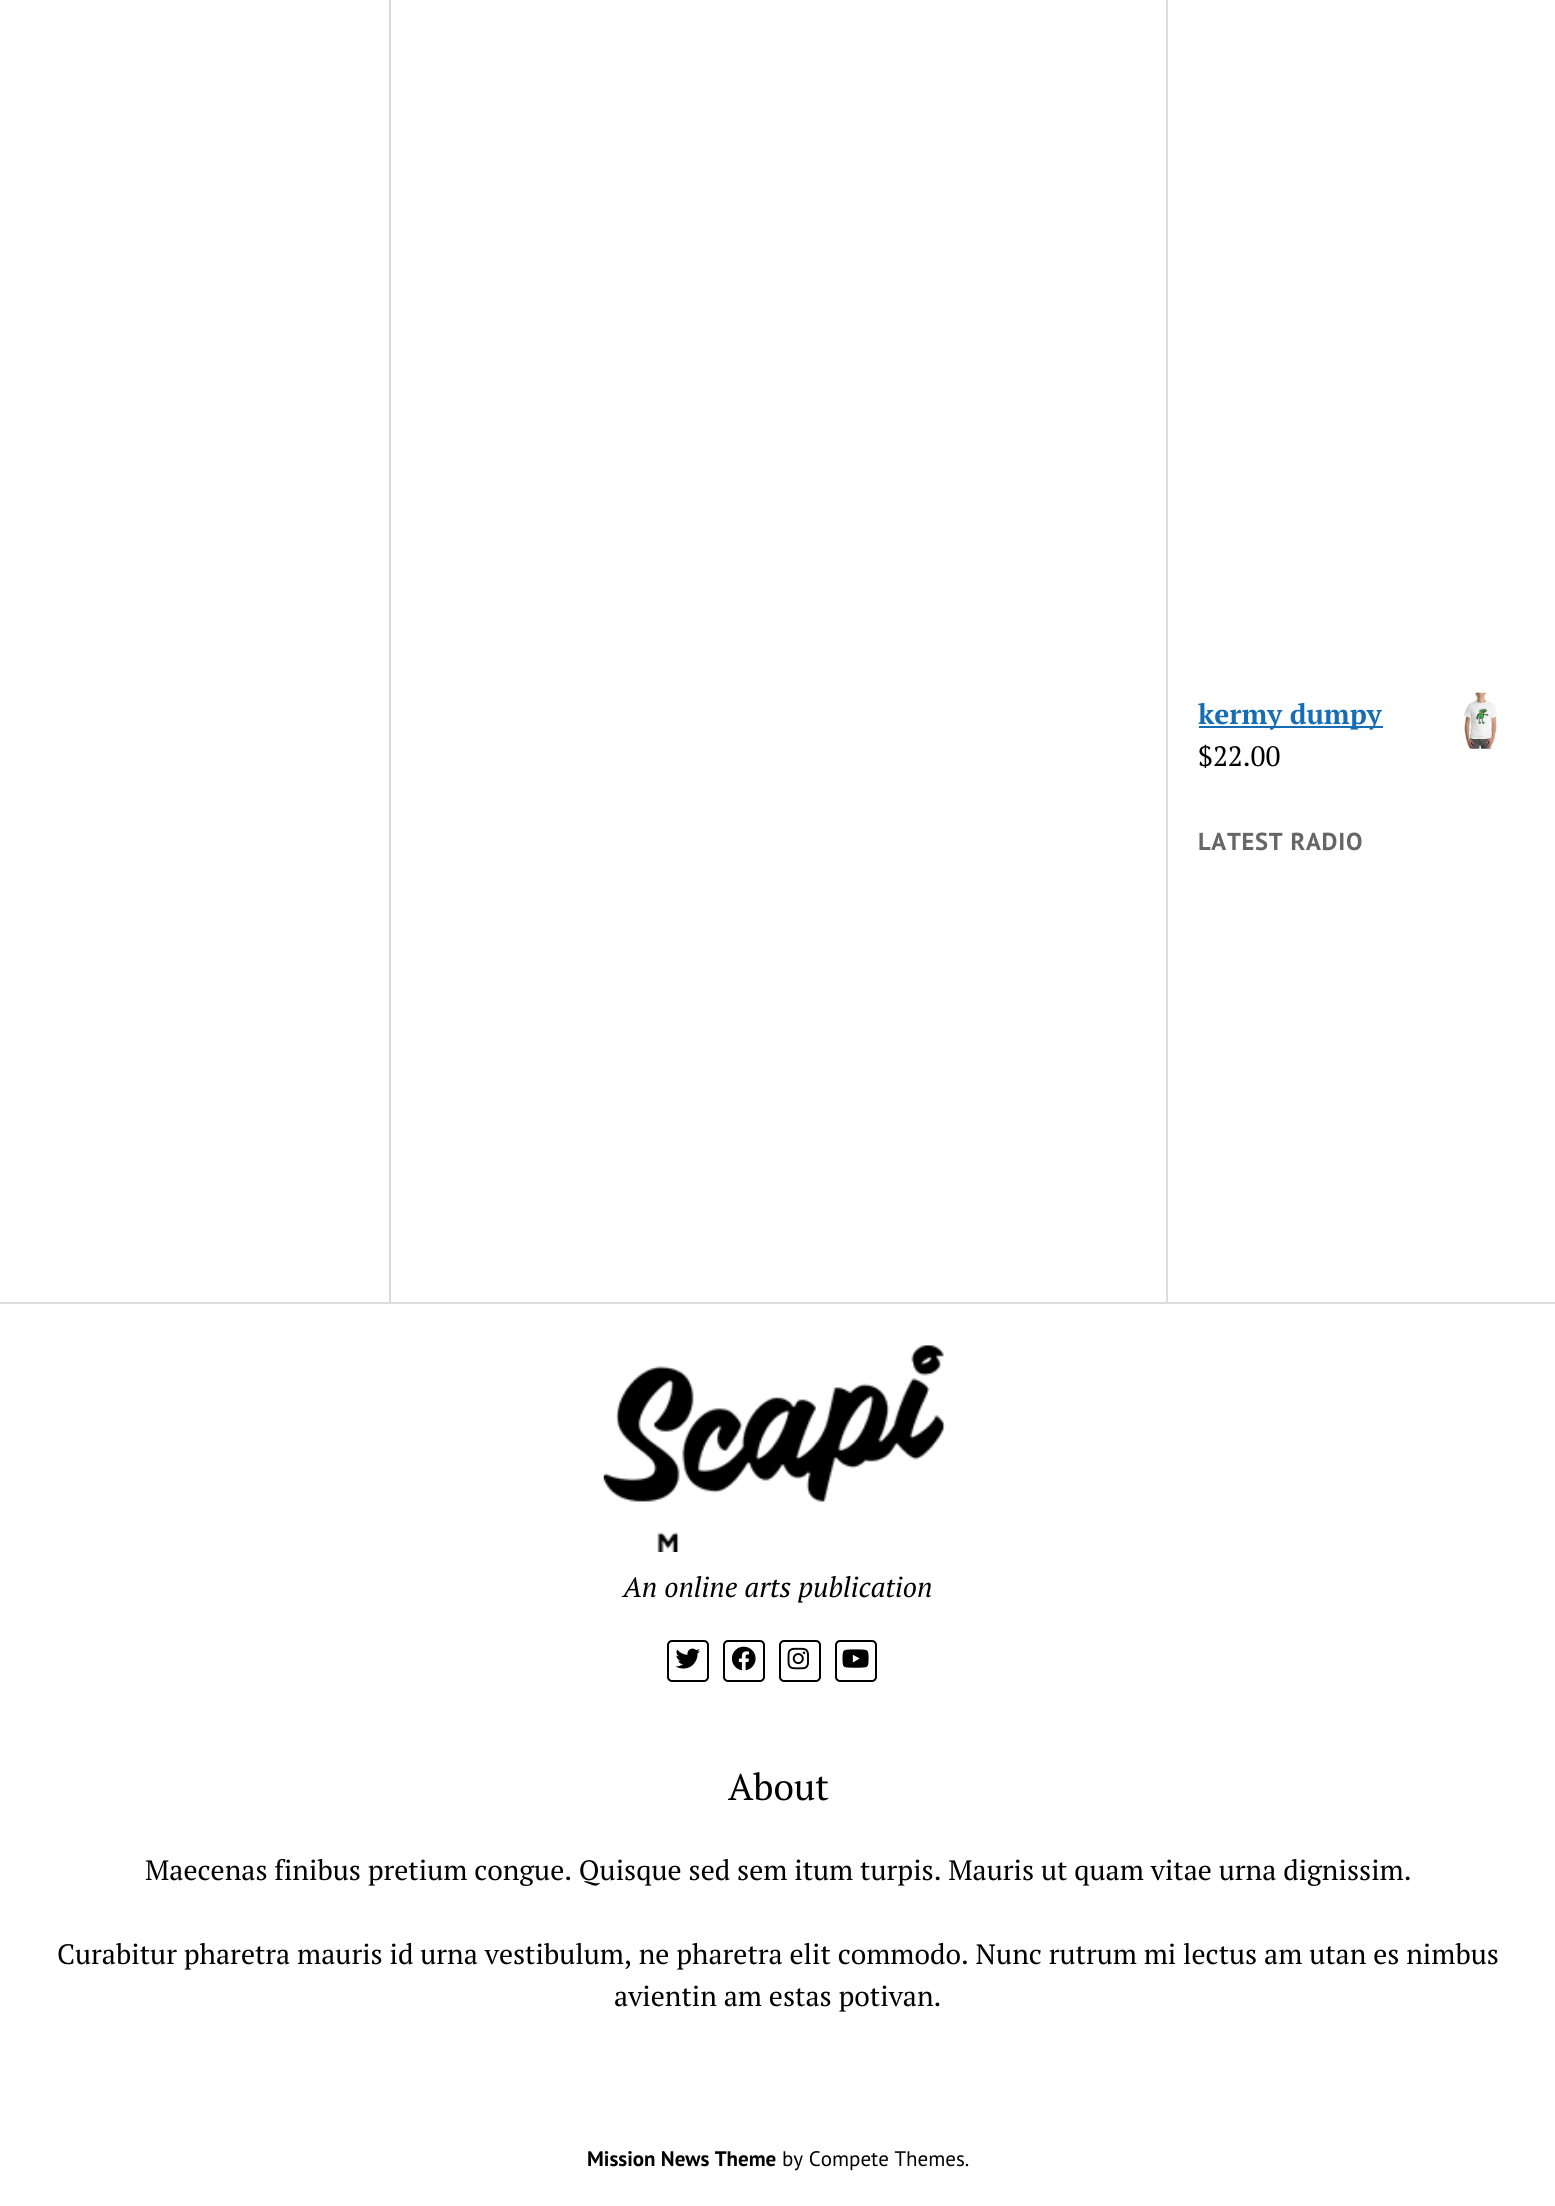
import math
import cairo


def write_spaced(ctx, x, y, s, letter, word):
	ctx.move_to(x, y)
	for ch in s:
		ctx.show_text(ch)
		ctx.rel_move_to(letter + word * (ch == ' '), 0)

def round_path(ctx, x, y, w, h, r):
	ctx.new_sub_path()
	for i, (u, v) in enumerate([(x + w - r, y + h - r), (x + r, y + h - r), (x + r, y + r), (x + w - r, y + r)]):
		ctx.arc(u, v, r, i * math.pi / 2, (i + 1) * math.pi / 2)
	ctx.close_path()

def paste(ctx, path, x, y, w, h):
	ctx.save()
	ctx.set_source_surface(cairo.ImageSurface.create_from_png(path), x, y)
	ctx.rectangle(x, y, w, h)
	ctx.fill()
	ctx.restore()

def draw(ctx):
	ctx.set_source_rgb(1, 1, 1)
	ctx.paint()
	ctx.set_source_rgb(0.863, 0.863, 0.863)
	ctx.rectangle(389, 0, 2, 1302)
	ctx.rectangle(1166, 0, 2, 1302)
	ctx.fill()
	ctx.set_source_rgb(0.09, 0.427, 0.702)
	ctx.rectangle(1199, 726, 184, 2)
	ctx.fill()
	ctx.select_font_face('PT Serif', cairo.FONT_SLANT_NORMAL, cairo.FONT_WEIGHT_BOLD)
	ctx.set_font_size(28)
	ctx.move_to(1198, 724)
	ctx.show_text('kermy dumpy')
	paste(ctx, 'media/1.png', 1463, 692, 34, 57)
	ctx.select_font_face('PT Serif')
	ctx.set_source_rgb(0, 0, 0)
	ctx.move_to(1198, 766)
	ctx.show_text('$22.00')
	ctx.select_font_face('PT Sans', cairo.FONT_SLANT_NORMAL, cairo.FONT_WEIGHT_BOLD)
	ctx.set_font_size(24.5)
	ctx.set_source_rgb(0.4, 0.4, 0.4)
	write_spaced(ctx, 1198, 850, 'LATEST RADIO', 0.75, 0)
	ctx.set_source_rgb(0.863, 0.863, 0.863)
	ctx.rectangle(0, 1302, 1555, 2)
	ctx.fill()
	paste(ctx, 'media/2.png', 603, 1345, 342, 207)
	ctx.select_font_face('PT Serif', cairo.FONT_SLANT_ITALIC)
	ctx.set_font_size(28)
	ctx.set_source_rgb(0, 0, 0)
	ctx.move_to(623, 1597)
	ctx.show_text('An online arts publication')
	round_path(ctx, 668, 1641, 40, 40, 4)
	ctx.stroke()
	paste(ctx, 'media/3.png', 675, 1648, 25, 21)
	round_path(ctx, 724, 1641, 40, 40, 4)
	ctx.stroke()
	paste(ctx, 'media/4.png', 731, 1646, 25, 25)
	round_path(ctx, 780, 1641, 40, 40, 4)
	ctx.stroke()
	paste(ctx, 'media/5.png', 787, 1647, 22, 23)
	round_path(ctx, 836, 1641, 40, 40, 4)
	ctx.stroke()
	paste(ctx, 'media/6.png', 842, 1649, 27, 19)
	ctx.select_font_face('PT Serif')
	ctx.set_font_size(37)
	ctx.move_to(728, 1800)
	ctx.show_text('About')
	ctx.set_font_size(28)
	for x, y, s in [
		(145, 1880, 'Maecenas finibus pretium congue. Quisque sed sem itum turpis. Mauris ut quam vitae urna dignissim.'),
		(57, 1964, 'Curabitur pharetra mauris id urna vestibulum, ne pharetra elit commodo. Nunc rutrum mi lectus am utan es nimbus'),
		(614, 2006, 'avientin am estas potivan.'),
	]:
		ctx.move_to(x, y)
		ctx.show_text(s)
	ctx.select_font_face('PT Sans', cairo.FONT_SLANT_NORMAL, cairo.FONT_WEIGHT_BOLD)
	ctx.set_font_size(21)
	ctx.move_to(587, 2166)
	ctx.show_text('Mission News Theme')
	ctx.select_font_face('PT Sans')
	ctx.move_to(782, 2166)
	ctx.show_text('by Compete Themes.')


surface = cairo.ImageSurface(cairo.FORMAT_RGB24, 1555, 2206)
ctx = cairo.Context(surface)
options = cairo.FontOptions()
options.set_hint_metrics(cairo.HINT_METRICS_OFF)
options.set_hint_style(cairo.HINT_STYLE_NONE)
ctx.set_font_options(options)
ctx.set_miter_limit(4)
draw(ctx)
surface.write_to_png('image.png')
